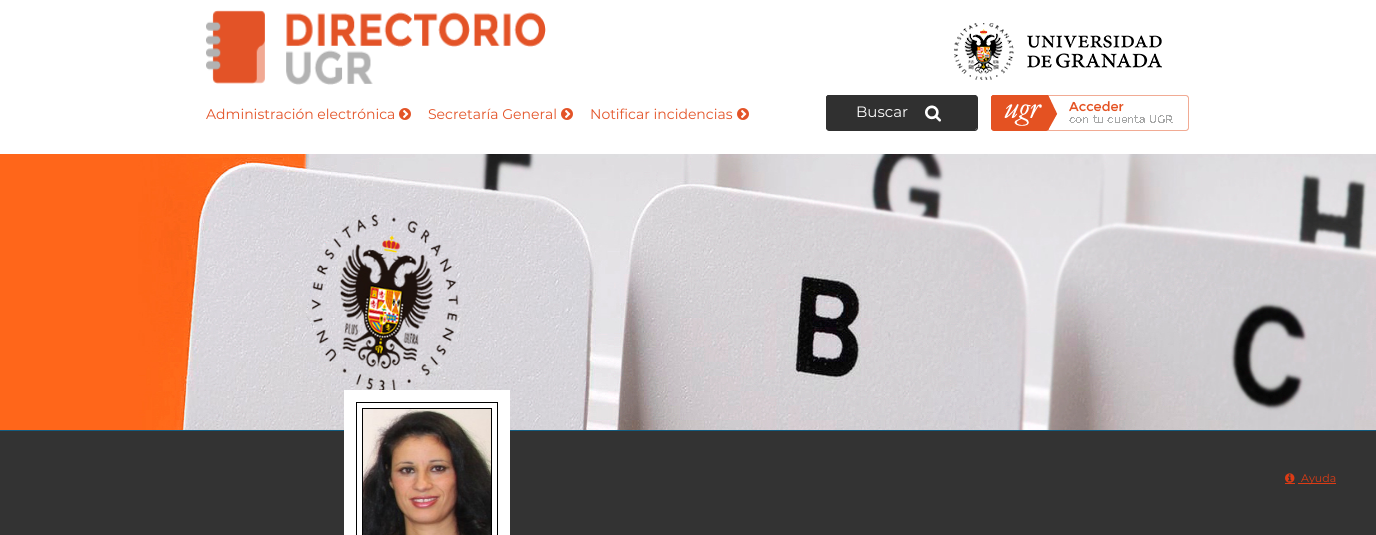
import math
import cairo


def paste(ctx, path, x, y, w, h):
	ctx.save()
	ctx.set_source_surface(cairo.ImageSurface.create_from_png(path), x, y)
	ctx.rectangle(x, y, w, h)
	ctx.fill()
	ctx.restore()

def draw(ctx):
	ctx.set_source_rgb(1, 1, 1)
	ctx.paint()
	paste(ctx, 'media/1.png', 206, 10, 340, 75)
	paste(ctx, 'media/2.png', 954, 23, 208, 57)
	ctx.select_font_face('Montserrat Thin')
	ctx.set_font_size(14)
	ctx.set_source_rgb(0.89, 0.325, 0.153)
	ctx.move_to(206, 119)
	ctx.show_text('Administración electrónica')
	paste(ctx, 'media/3.png', 399, 108, 12, 12)
	ctx.move_to(428, 119)
	ctx.show_text('Secretaría General')
	paste(ctx, 'media/3.png', 561, 108, 12, 12)
	ctx.move_to(590, 119)
	ctx.show_text('Notificar incidencias')
	paste(ctx, 'media/3.png', 737, 108, 12, 12)
	paste(ctx, 'media/4.png', 991, 95, 198, 36)
	paste(ctx, 'media/5.png', 0, 154, 1376, 276)
	paste(ctx, 'media/6.png', 826, 95, 152, 36)
	ctx.set_font_size(15)
	ctx.set_source_rgb(1, 1, 1)
	ctx.move_to(856, 117)
	ctx.show_text('Buscar')
	ctx.set_source_rgb(0.2, 0.2, 0.2)
	ctx.rectangle(0, 431, 1376, 104)
	ctx.fill()
	ctx.set_source_rgb(0.071, 0.361, 0.502)
	ctx.rectangle(0, 430, 1376, 1)
	ctx.fill()
	ctx.set_source_rgb(1, 1, 1)
	ctx.rectangle(344, 390, 166, 145)
	ctx.fill()
	ctx.rectangle(356.5, 402.5, 141, 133)
	ctx.set_source_rgb(0, 0, 0)
	ctx.set_line_width(1)
	ctx.stroke()
	ctx.rectangle(362.5, 408.5, 129, 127)
	ctx.stroke()
	paste(ctx, 'media/7.png', 363, 409, 128, 126)
	ctx.set_source_rgb(0.867, 0.231, 0.082)
	ctx.rectangle(1285, 483, 10, 1)
	ctx.fill()
	paste(ctx, 'media/8.png', 1285, 473, 10, 10)
	ctx.rectangle(1298, 483, 38, 1)
	ctx.fill()
	ctx.set_font_size(11)
	ctx.move_to(1301, 482)
	ctx.show_text('Ayuda')


surface = cairo.ImageSurface(cairo.FORMAT_RGB24, 1376, 535)
ctx = cairo.Context(surface)
options = cairo.FontOptions()
options.set_hint_metrics(cairo.HINT_METRICS_OFF)
options.set_hint_style(cairo.HINT_STYLE_NONE)
ctx.set_font_options(options)
ctx.set_miter_limit(4)
draw(ctx)
surface.write_to_png('image.png')
